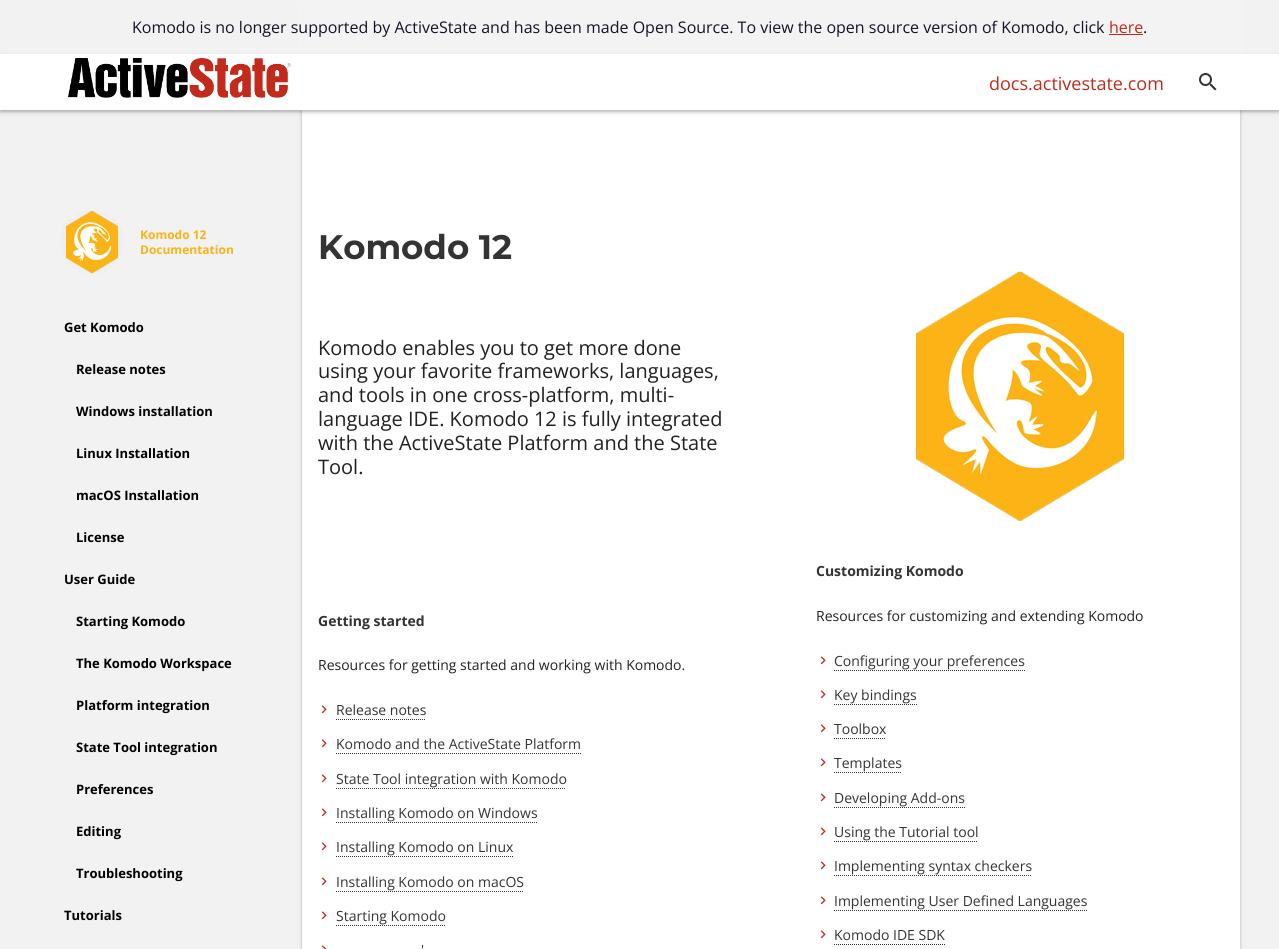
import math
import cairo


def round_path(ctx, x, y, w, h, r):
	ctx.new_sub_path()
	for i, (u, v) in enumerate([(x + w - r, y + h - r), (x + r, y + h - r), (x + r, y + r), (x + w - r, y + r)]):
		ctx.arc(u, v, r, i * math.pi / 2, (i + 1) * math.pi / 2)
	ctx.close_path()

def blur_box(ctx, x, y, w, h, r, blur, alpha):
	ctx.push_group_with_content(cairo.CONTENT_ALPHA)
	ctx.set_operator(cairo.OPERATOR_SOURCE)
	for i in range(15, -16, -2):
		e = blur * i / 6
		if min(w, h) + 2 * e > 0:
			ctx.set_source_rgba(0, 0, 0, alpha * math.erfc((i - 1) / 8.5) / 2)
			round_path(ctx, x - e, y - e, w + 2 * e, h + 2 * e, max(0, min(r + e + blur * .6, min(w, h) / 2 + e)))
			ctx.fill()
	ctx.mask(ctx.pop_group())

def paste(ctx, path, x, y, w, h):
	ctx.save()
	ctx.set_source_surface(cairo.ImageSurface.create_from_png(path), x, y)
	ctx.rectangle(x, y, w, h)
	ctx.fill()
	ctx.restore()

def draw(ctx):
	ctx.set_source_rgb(0.949, 0.949, 0.949)
	ctx.paint()
	ctx.set_source_rgb(0, 0, 0)
	blur_box(ctx, 302, 3, 938, 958, 0, 4, 0.05)
	blur_box(ctx, 302, 2, 938, 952, 0, 1.5, 0.24)
	ctx.set_source_rgb(1, 1, 1)
	ctx.rectangle(302, 110, 938, 839)
	ctx.fill()
	ctx.set_source_rgb(0.953, 0.953, 0.953)
	ctx.rectangle(297, 0, 948, 54)
	ctx.fill()
	ctx.select_font_face('Open Sans')
	ctx.set_font_size(16)
	ctx.set_source_rgb(0.078, 0.078, 0.161)
	ctx.move_to(132, 33)
	ctx.show_text('Komodo is no longer supported by ActiveState and has been made Open Source. To view the open source version of Komodo, click')
	ctx.set_source_rgb(0.765, 0.165, 0.106)
	ctx.move_to(1109, 33)
	ctx.show_text('here')
	ctx.rectangle(1109, 34, 34, 1)
	ctx.fill()
	ctx.set_source_rgb(0.078, 0.078, 0.161)
	ctx.move_to(1143, 33)
	ctx.show_text('.')
	ctx.set_source_rgb(0, 0, 0)
	blur_box(ctx, 0, 57, 1279, 56, 0, 4, 0.05)
	blur_box(ctx, 0, 56, 1279, 56, 0, 1.5, 0.24)
	ctx.set_source_rgb(1, 1, 1)
	ctx.rectangle(0, 54, 1279, 56)
	ctx.fill()
	paste(ctx, 'media/1.png', 68, 58, 223, 40)
	ctx.set_font_size(18)
	ctx.set_source_rgb(0.765, 0.165, 0.106)
	ctx.move_to(989, 90)
	ctx.show_text('docs.activestate.com')
	paste(ctx, 'media/2.png', 1199, 73, 18, 18)
	ctx.set_source_rgb(0.937, 0.937, 0.937)
	ctx.arc(92, 242, 32, 0, 2 * math.pi)
	ctx.fill()
	paste(ctx, 'media/3.png', 66, 211, 52, 63)
	ctx.select_font_face('Open Sans', cairo.FONT_SLANT_NORMAL, cairo.FONT_WEIGHT_BOLD)
	ctx.set_font_size(12)
	ctx.set_source_rgb(0.988, 0.702, 0.082)
	ctx.move_to(140, 239)
	ctx.show_text('Komodo 12')
	ctx.move_to(140, 254)
	ctx.show_text('Documentation')
	ctx.set_font_size(13)
	ctx.set_source_rgb(0, 0, 0)
	for x, y, s in [
		(64, 332, 'Get Komodo'),
		(76, 374, 'Release notes'),
		(76, 416, 'Windows installation'),
		(76, 458, 'Linux Installation'),
		(76, 500, 'macOS Installation'),
		(76, 542, 'License'),
		(64, 584, 'User Guide'),
		(76, 626, 'Starting Komodo'),
		(76, 668, 'The Komodo Workspace'),
		(76, 710, 'Platform integration'),
		(76, 752, 'State Tool integration'),
		(76, 794, 'Preferences'),
		(76, 836, 'Editing'),
		(76, 878, 'Troubleshooting'),
		(64, 920, 'Tutorials'),
	]:
		ctx.move_to(x, y)
		ctx.show_text(s)
	ctx.select_font_face('Montserrat', cairo.FONT_SLANT_NORMAL, cairo.FONT_WEIGHT_BOLD)
	ctx.set_font_size(34)
	ctx.set_source_rgb(0.2, 0.2, 0.2)
	ctx.move_to(318, 259)
	ctx.show_text('Komodo 12')
	ctx.select_font_face('Open Sans')
	ctx.set_font_size(20)
	ctx.set_source_rgb(0.129, 0.129, 0.129)
	for x, y, s in [
		(318, 355, 'Komodo enables you to get more done'),
		(318, 378, 'using your favorite frameworks, languages,'),
		(318, 402, 'and tools in one cross-platform, multi-'),
		(318, 426, 'language IDE. Komodo 12 is fully integrated'),
		(318, 450, 'with the ActiveState Platform and the State'),
		(318, 474, 'Tool.'),
	]:
		ctx.move_to(x, y)
		ctx.show_text(s)
	ctx.select_font_face('Open Sans', cairo.FONT_SLANT_NORMAL, cairo.FONT_WEIGHT_BOLD)
	ctx.set_font_size(14)
	ctx.set_source_rgb(0.2, 0.2, 0.2)
	ctx.move_to(318, 626)
	ctx.show_text('Getting started')
	ctx.select_font_face('Open Sans')
	ctx.set_source_rgb(0.129, 0.129, 0.129)
	ctx.move_to(318, 670)
	ctx.show_text('Resources for getting started and working with Komodo.')
	paste(ctx, 'media/4.png', 321, 705, 6, 9)
	ctx.set_source_rgb(0.2, 0.2, 0.2)
	ctx.move_to(336, 715)
	ctx.show_text('Release notes')
	ctx.new_path()
	ctx.move_to(336, 719.5)
	ctx.line_to(426, 719.5)
	ctx.set_line_width(1)
	ctx.set_dash([1, 1])
	ctx.stroke()
	paste(ctx, 'media/4.png', 321, 739, 6, 9)
	ctx.move_to(336, 749)
	ctx.show_text('Komodo and the ActiveState Platform')
	ctx.new_path()
	ctx.move_to(336, 753.5)
	ctx.line_to(581, 753.5)
	ctx.stroke()
	paste(ctx, 'media/4.png', 321, 774, 6, 9)
	ctx.move_to(336, 784)
	ctx.show_text('State Tool integration with Komodo')
	ctx.new_path()
	ctx.move_to(336, 788.5)
	ctx.line_to(566, 788.5)
	ctx.stroke()
	paste(ctx, 'media/4.png', 321, 808, 6, 9)
	ctx.move_to(336, 818)
	ctx.show_text('Installing Komodo on Windows')
	ctx.new_path()
	ctx.move_to(336, 822.5)
	ctx.line_to(537, 822.5)
	ctx.stroke()
	paste(ctx, 'media/4.png', 321, 842, 6, 9)
	ctx.move_to(336, 852)
	ctx.show_text('Installing Komodo on Linux')
	ctx.new_path()
	ctx.move_to(336, 856.5)
	ctx.line_to(513, 856.5)
	ctx.stroke()
	paste(ctx, 'media/4.png', 321, 877, 6, 9)
	ctx.move_to(336, 887)
	ctx.show_text('Installing Komodo on macOS')
	ctx.new_path()
	ctx.move_to(336, 891.5)
	ctx.line_to(524, 891.5)
	ctx.stroke()
	paste(ctx, 'media/4.png', 321, 911, 6, 9)
	ctx.move_to(336, 921)
	ctx.show_text('Starting Komodo')
	ctx.new_path()
	ctx.move_to(336, 925.5)
	ctx.line_to(445, 925.5)
	ctx.stroke()
	paste(ctx, 'media/5.png', 321, 945, 6, 4)
	ctx.move_to(421, 955)
	ctx.show_text('\'')
	paste(ctx, 'media/6.png', 915, 271, 210, 251)
	ctx.select_font_face('Open Sans', cairo.FONT_SLANT_NORMAL, cairo.FONT_WEIGHT_BOLD)
	ctx.move_to(816, 576)
	ctx.show_text('Customizing Komodo')
	ctx.select_font_face('Open Sans')
	ctx.set_source_rgb(0.129, 0.129, 0.129)
	ctx.move_to(816, 621)
	ctx.show_text('Resources for customizing and extending Komodo')
	paste(ctx, 'media/4.png', 820, 656, 6, 9)
	ctx.set_source_rgb(0.2, 0.2, 0.2)
	ctx.move_to(834, 666)
	ctx.show_text('Configuring your preferences')
	ctx.new_path()
	ctx.move_to(834, 670.5)
	ctx.line_to(1025, 670.5)
	ctx.stroke()
	paste(ctx, 'media/4.png', 820, 690, 6, 9)
	ctx.move_to(834, 700)
	ctx.show_text('Key bindings')
	ctx.new_path()
	ctx.move_to(834, 704.5)
	ctx.line_to(917, 704.5)
	ctx.stroke()
	paste(ctx, 'media/4.png', 820, 724, 6, 9)
	ctx.move_to(834, 734)
	ctx.show_text('Toolbox')
	ctx.new_path()
	ctx.move_to(834, 738.5)
	ctx.line_to(886, 738.5)
	ctx.stroke()
	paste(ctx, 'media/4.png', 820, 758, 6, 9)
	ctx.move_to(834, 768)
	ctx.show_text('Templates')
	ctx.new_path()
	ctx.move_to(834, 772.5)
	ctx.line_to(902, 772.5)
	ctx.stroke()
	paste(ctx, 'media/4.png', 820, 793, 6, 9)
	ctx.move_to(834, 803)
	ctx.show_text('Developing Add-ons')
	ctx.new_path()
	ctx.move_to(834, 807.5)
	ctx.line_to(965, 807.5)
	ctx.stroke()
	paste(ctx, 'media/4.png', 820, 827, 6, 9)
	ctx.move_to(834, 837)
	ctx.show_text('Using the Tutorial tool')
	ctx.new_path()
	ctx.move_to(834, 841.5)
	ctx.line_to(978, 841.5)
	ctx.stroke()
	paste(ctx, 'media/4.png', 820, 861, 6, 9)
	ctx.move_to(834, 871)
	ctx.show_text('Implementing syntax checkers')
	ctx.new_path()
	ctx.move_to(834, 875.5)
	ctx.line_to(1032, 875.5)
	ctx.stroke()
	paste(ctx, 'media/4.png', 820, 896, 6, 9)
	ctx.move_to(834, 906)
	ctx.show_text('Implementing User Defined Languages')
	ctx.new_path()
	ctx.move_to(834, 910.5)
	ctx.line_to(1087, 910.5)
	ctx.stroke()
	paste(ctx, 'media/4.png', 820, 930, 6, 9)
	ctx.move_to(834, 940)
	ctx.show_text('Komodo IDE SDK')
	ctx.new_path()
	ctx.move_to(834, 944.5)
	ctx.line_to(945, 944.5)
	ctx.stroke()


surface = cairo.ImageSurface(cairo.FORMAT_RGB24, 1279, 949)
ctx = cairo.Context(surface)
options = cairo.FontOptions()
options.set_hint_metrics(cairo.HINT_METRICS_OFF)
options.set_hint_style(cairo.HINT_STYLE_NONE)
ctx.set_font_options(options)
ctx.set_miter_limit(4)
draw(ctx)
surface.write_to_png('image.png')
